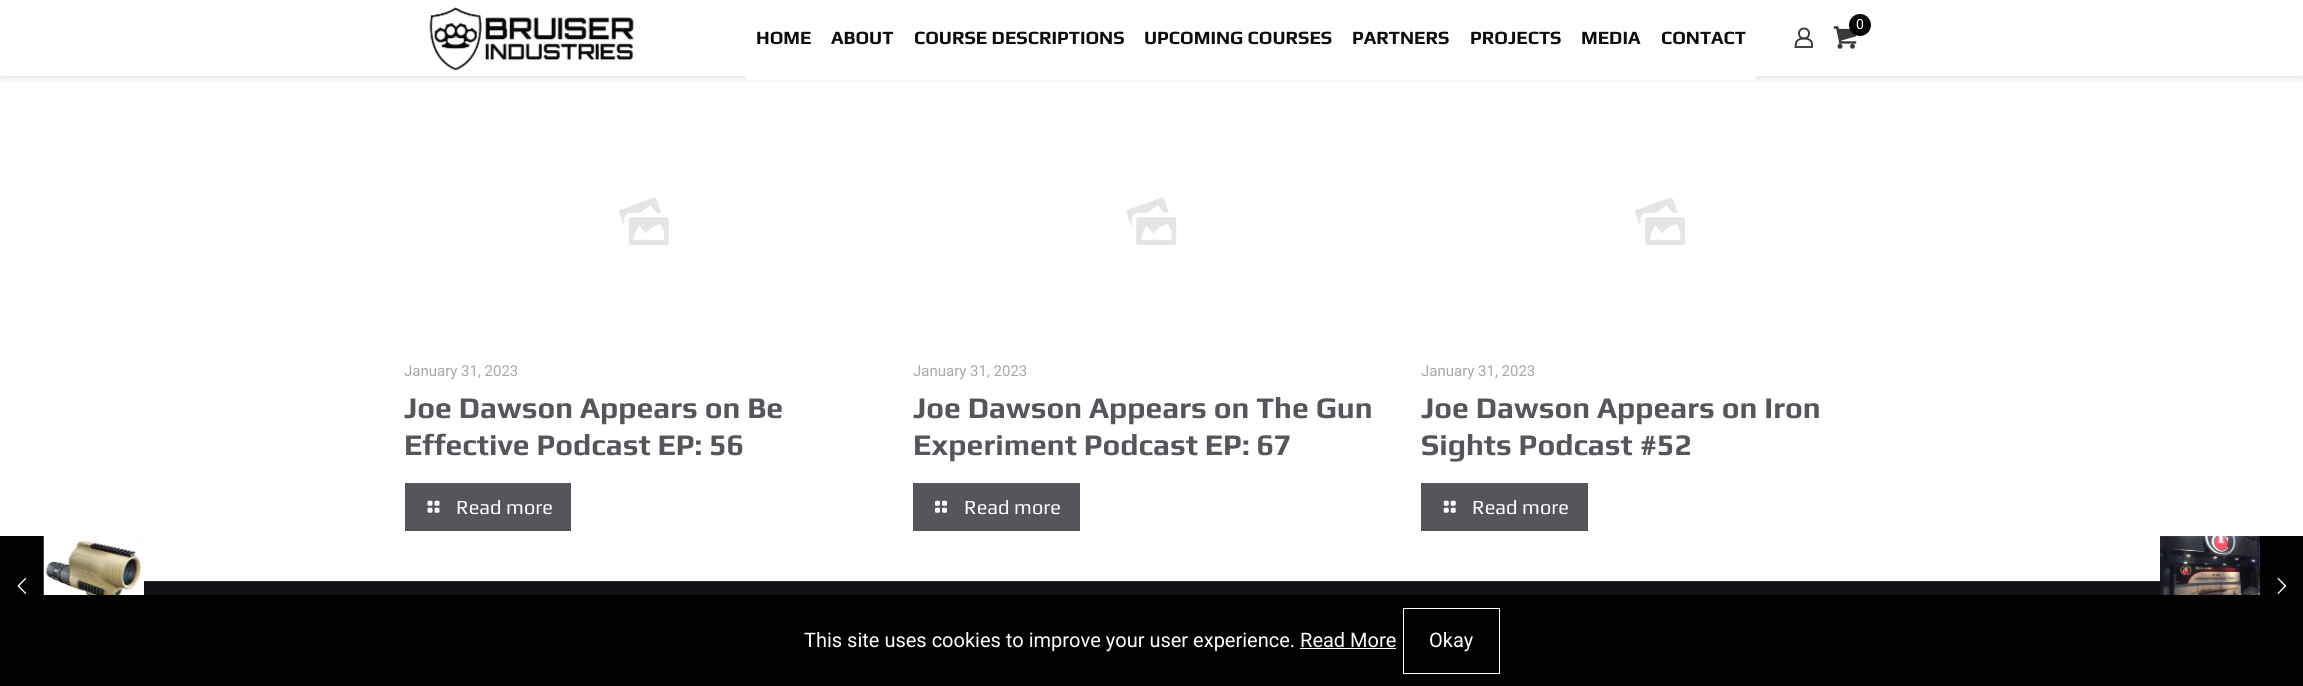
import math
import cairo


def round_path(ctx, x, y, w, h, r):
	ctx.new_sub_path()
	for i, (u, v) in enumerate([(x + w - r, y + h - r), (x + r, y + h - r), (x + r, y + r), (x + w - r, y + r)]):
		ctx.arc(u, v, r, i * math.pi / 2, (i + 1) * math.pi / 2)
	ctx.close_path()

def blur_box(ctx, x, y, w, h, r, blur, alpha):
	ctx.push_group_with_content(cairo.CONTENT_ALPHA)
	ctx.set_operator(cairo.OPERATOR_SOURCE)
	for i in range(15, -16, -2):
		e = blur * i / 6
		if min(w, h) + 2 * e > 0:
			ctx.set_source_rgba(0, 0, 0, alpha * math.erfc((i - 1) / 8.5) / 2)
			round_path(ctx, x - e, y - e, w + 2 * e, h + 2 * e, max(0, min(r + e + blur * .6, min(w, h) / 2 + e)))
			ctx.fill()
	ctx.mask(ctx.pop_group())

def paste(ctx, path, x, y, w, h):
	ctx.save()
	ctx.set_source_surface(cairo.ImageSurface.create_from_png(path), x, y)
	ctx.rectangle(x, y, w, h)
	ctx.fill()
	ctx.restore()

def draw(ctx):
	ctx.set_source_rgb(1, 1, 1)
	ctx.paint()
	ctx.set_source_rgb(0.922, 0.922, 0.922)
	ctx.rectangle(390, 26, 1525, 1)
	ctx.fill()
	ctx.save()
	ctx.rectangle(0, 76, 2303, 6)
	ctx.clip()
	ctx.set_source_rgb(0, 0, 0)
	blur_box(ctx, 0, 3, 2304, 76, 0, 3, 0.1)
	ctx.restore()
	ctx.set_source_rgba(1, 1, 1, 0.97)
	ctx.rectangle(390, 26, 1525, 1)
	ctx.fill()
	paste(ctx, 'media/1.png', 1833, 26, 24, 23)
	ctx.set_source_rgba(0, 0, 0, 0.97)
	ctx.arc(1860, 25, 11, 0, 2 * math.pi)
	ctx.fill()
	ctx.select_font_face('Roboto')
	ctx.set_font_size(14)
	ctx.set_source_rgb(0.973, 0.973, 0.973)
	ctx.move_to(1856, 29)
	ctx.show_text('0')
	ctx.new_path()
	ctx.arc(1804, 33.5, 5, 0, 2 * math.pi)
	ctx.set_source_rgb(0.224, 0.224, 0.224)
	ctx.set_line_width(1.9)
	ctx.stroke()
	ctx.new_path()
	ctx.move_to(1812, 44)
	ctx.line_to(1812, 47)
	ctx.line_to(1795.5, 47)
	ctx.line_to(1796, 43)
	ctx.curve_to(1797.5, 36.5, 1812, 37, 1812, 44)
	ctx.close_path()
	ctx.stroke()
	paste(ctx, 'media/2.png', 429, 7, 205, 64)
	ctx.select_font_face('Play', cairo.FONT_SLANT_NORMAL, cairo.FONT_WEIGHT_BOLD)
	ctx.set_font_size(18.75)
	ctx.set_source_rgb(0.051, 0.047, 0.051)
	ctx.move_to(756, 44)
	ctx.show_text('HOME')
	ctx.set_source_rgb(1, 1, 1)
	ctx.rectangle(746, 76, 1010, 4)
	ctx.fill()
	ctx.set_source_rgb(0.051, 0.047, 0.051)
	for x, y, s in [
		(831, 44, 'ABOUT'),
		(914, 44, 'COURSE DESCRIPTIONS'),
		(1144, 44, 'UPCOMING COURSES'),
		(1352, 44, 'PARTNERS'),
		(1470, 44, 'PROJECTS'),
		(1581, 44, 'MEDIA'),
		(1661, 44, 'CONTACT'),
	]:
		ctx.move_to(x, y)
		ctx.show_text(s)
	paste(ctx, 'media/3.png', 618, 197, 51, 48)
	ctx.select_font_face('Roboto')
	ctx.set_font_size(15)
	ctx.set_source_rgb(0.659, 0.659, 0.659)
	ctx.move_to(404, 376)
	ctx.show_text('January 31, 2023')
	ctx.select_font_face('Play', cairo.FONT_SLANT_NORMAL, cairo.FONT_WEIGHT_BOLD)
	ctx.set_font_size(30)
	ctx.set_source_rgb(0.329, 0.337, 0.357)
	ctx.move_to(404, 418)
	ctx.show_text('Joe Dawson Appears on Be')
	ctx.move_to(404, 455)
	ctx.show_text('Effective Podcast EP: 56')
	ctx.rectangle(405, 483, 166, 48)
	ctx.fill()
	paste(ctx, 'media/4.png', 427, 500, 13, 13)
	ctx.select_font_face('Play')
	ctx.set_font_size(20)
	ctx.set_source_rgb(1, 1, 1)
	ctx.move_to(456, 514)
	ctx.show_text('Read more')
	paste(ctx, 'media/5.png', 1126, 197, 51, 48)
	ctx.select_font_face('Roboto')
	ctx.set_font_size(15)
	ctx.set_source_rgb(0.659, 0.659, 0.659)
	ctx.move_to(913, 376)
	ctx.show_text('January 31, 2023')
	ctx.select_font_face('Play', cairo.FONT_SLANT_NORMAL, cairo.FONT_WEIGHT_BOLD)
	ctx.set_font_size(30)
	ctx.set_source_rgb(0.329, 0.337, 0.357)
	ctx.move_to(913, 418)
	ctx.show_text('Joe Dawson Appears on The Gun')
	ctx.move_to(913, 455)
	ctx.show_text('Experiment Podcast EP: 67')
	ctx.rectangle(913, 483, 167, 48)
	ctx.fill()
	paste(ctx, 'media/6.png', 935, 500, 12, 13)
	ctx.select_font_face('Play')
	ctx.set_font_size(20)
	ctx.set_source_rgb(1, 1, 1)
	ctx.move_to(964, 514)
	ctx.show_text('Read more')
	paste(ctx, 'media/7.png', 1635, 197, 50, 48)
	ctx.select_font_face('Roboto')
	ctx.set_font_size(15)
	ctx.set_source_rgb(0.659, 0.659, 0.659)
	ctx.move_to(1421, 376)
	ctx.show_text('January 31, 2023')
	ctx.select_font_face('Play', cairo.FONT_SLANT_NORMAL, cairo.FONT_WEIGHT_BOLD)
	ctx.set_font_size(30)
	ctx.set_source_rgb(0.329, 0.337, 0.357)
	ctx.move_to(1421, 418)
	ctx.show_text('Joe Dawson Appears on Iron')
	ctx.move_to(1421, 455)
	ctx.show_text('Sights Podcast #52')
	ctx.rectangle(1421, 483, 167, 48)
	ctx.fill()
	paste(ctx, 'media/8.png', 1443, 500, 13, 13)
	ctx.select_font_face('Play')
	ctx.set_font_size(20)
	ctx.set_source_rgb(1, 1, 1)
	ctx.move_to(1472, 514)
	ctx.show_text('Read more')
	ctx.set_source_rgb(0.063, 0.063, 0.082)
	ctx.rectangle(144, 582, 2016, 13)
	ctx.fill()
	ctx.set_source_rgb(0.157, 0.157, 0.173)
	ctx.rectangle(144, 581, 2016, 1)
	ctx.fill()
	ctx.set_source_rgb(0, 0, 0)
	ctx.rectangle(0, 536, 44, 59)
	ctx.fill()
	paste(ctx, 'media/9.png', 17, 577, 10, 17)
	ctx.set_source_rgb(0.933, 0.933, 0.933)
	ctx.rectangle(44, 536, 100, 59)
	ctx.fill()
	paste(ctx, 'media/10.png', 43, 536, 101, 59)
	paste(ctx, 'media/11.png', 2160, 536, 100, 1)
	paste(ctx, 'media/12.png', 2160, 536, 100, 59)
	ctx.set_source_rgb(0, 0, 0)
	ctx.rectangle(2260, 536, 43, 59)
	ctx.fill()
	paste(ctx, 'media/13.png', 2277, 577, 10, 17)
	ctx.rectangle(0, 595, 2303, 91)
	ctx.fill()
	ctx.select_font_face('Roboto')
	ctx.set_source_rgb(1, 1, 1)
	ctx.move_to(804, 647)
	ctx.show_text('This site uses cookies to improve your user experience. Read More')
	ctx.rectangle(1300, 648, 96, 1)
	ctx.fill()
	ctx.rectangle(1403.5, 608.5, 96, 65)
	ctx.set_line_width(1)
	ctx.stroke()
	ctx.move_to(1429, 647)
	ctx.show_text('Okay')


surface = cairo.ImageSurface(cairo.FORMAT_RGB24, 2303, 686)
ctx = cairo.Context(surface)
options = cairo.FontOptions()
options.set_hint_metrics(cairo.HINT_METRICS_OFF)
options.set_hint_style(cairo.HINT_STYLE_NONE)
ctx.set_font_options(options)
ctx.set_miter_limit(4)
draw(ctx)
surface.write_to_png('image.png')
